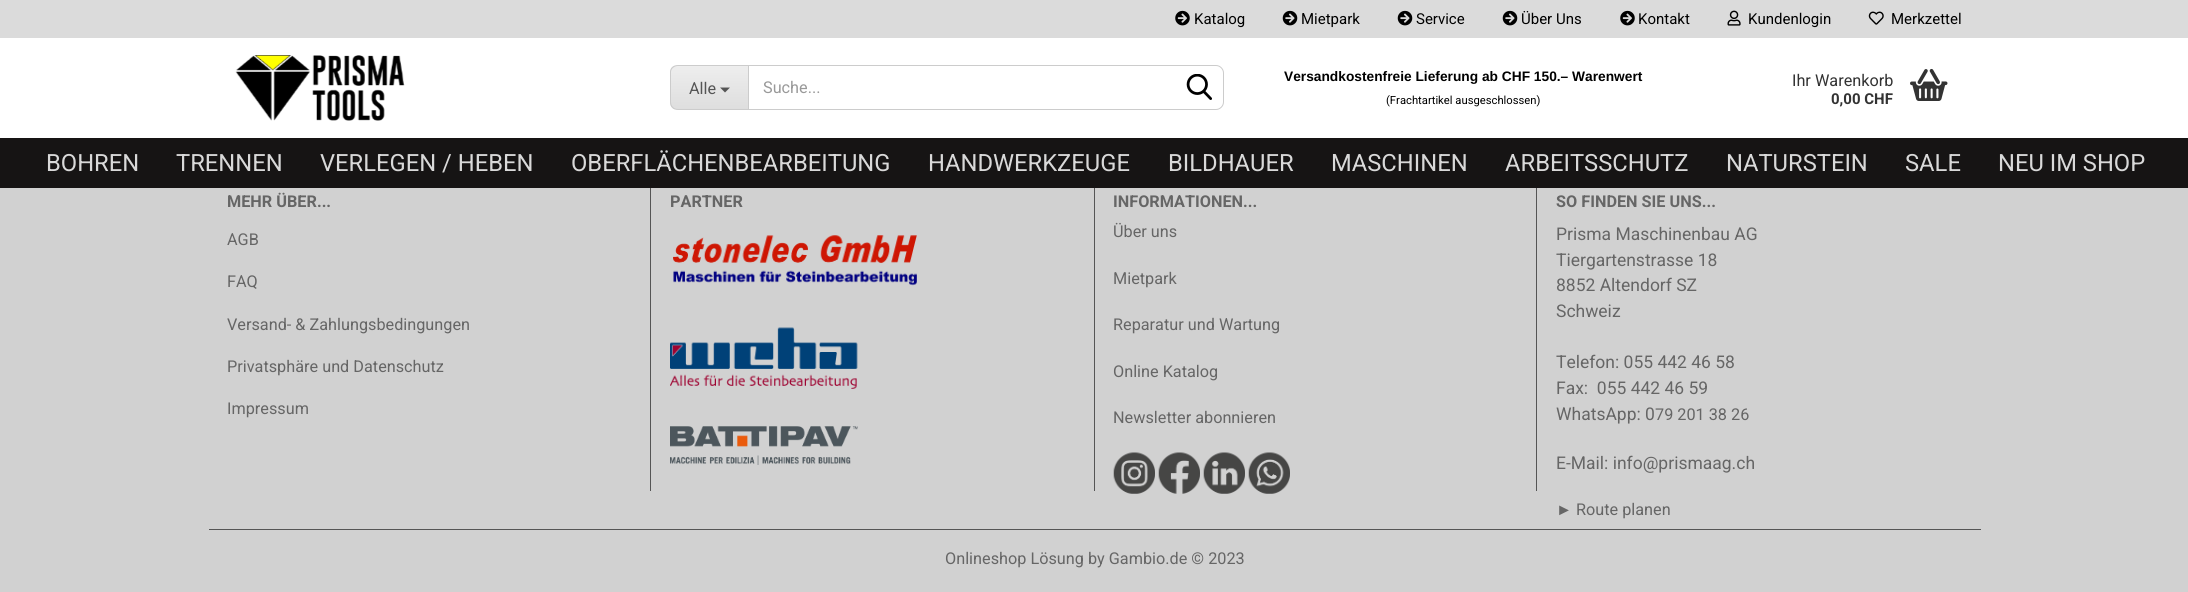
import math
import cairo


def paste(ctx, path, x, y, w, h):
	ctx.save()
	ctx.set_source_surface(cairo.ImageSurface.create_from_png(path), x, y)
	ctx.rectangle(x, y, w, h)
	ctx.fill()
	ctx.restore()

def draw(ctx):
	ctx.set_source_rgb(0.82, 0.82, 0.82)
	ctx.paint()
	ctx.set_source_rgb(1, 1, 1)
	ctx.rectangle(0, 38, 2188, 100)
	ctx.fill()
	ctx.set_source_rgb(0.859, 0.859, 0.859)
	ctx.rectangle(0, 0, 2188, 38)
	ctx.fill()
	paste(ctx, 'media/1.png', 1175, 10, 15, 16)
	ctx.select_font_face('Roboto')
	ctx.set_font_size(15)
	ctx.set_source_rgb(0, 0, 0)
	ctx.move_to(1194, 24)
	ctx.show_text('Katalog')
	paste(ctx, 'media/2.png', 1282, 10, 16, 16)
	ctx.move_to(1301, 24)
	ctx.show_text('Mietpark')
	paste(ctx, 'media/2.png', 1397, 10, 16, 16)
	ctx.move_to(1416, 24)
	ctx.show_text('Service')
	paste(ctx, 'media/2.png', 1502, 10, 16, 16)
	ctx.move_to(1521, 24)
	ctx.show_text('Über Uns')
	paste(ctx, 'media/1.png', 1620, 10, 15, 16)
	ctx.move_to(1638, 24)
	ctx.show_text('Kontakt')
	paste(ctx, 'media/3.png', 1727, 10, 14, 16)
	ctx.move_to(1748, 24)
	ctx.show_text('Kundenlogin')
	paste(ctx, 'media/4.png', 1868, 11, 16, 14)
	ctx.move_to(1891, 24)
	ctx.show_text('Merkzettel')
	paste(ctx, 'media/5.png', 235, 55, 170, 66)
	ctx.save()
	ctx.new_path()
	ctx.move_to(678, 65)
	ctx.line_to(748, 65)
	ctx.line_to(748, 110)
	ctx.line_to(678, 110)
	ctx.curve_to(673.5, 110, 670, 106.5, 670, 102)
	ctx.line_to(670, 73)
	ctx.curve_to(670, 68.5, 673.5, 65, 678, 65)
	ctx.close_path()
	ctx.clip()
	gradient = cairo.LinearGradient(709, 66, 709, 109)
	gradient.add_color_stop_rgba(0, 0.933, 0.933, 0.933, 1)
	gradient.add_color_stop_rgba(1, 0.871, 0.871, 0.871, 1)
	ctx.set_source(gradient)
	ctx.rectangle(670, 66, 78, 43)
	ctx.fill()
	ctx.restore()
	ctx.set_source_rgb(0.8, 0.8, 0.8)
	ctx.set_fill_rule(cairo.FILL_RULE_EVEN_ODD)
	ctx.new_path()
	ctx.move_to(678, 65)
	ctx.line_to(748, 65)
	ctx.line_to(748, 110)
	ctx.line_to(678, 110)
	ctx.curve_to(673, 110, 670, 107, 670, 102)
	ctx.line_to(670, 72)
	ctx.curve_to(670, 68, 673, 65, 678, 65)
	ctx.close_path()
	ctx.move_to(678, 66)
	ctx.line_to(748, 66)
	ctx.line_to(748, 109)
	ctx.line_to(678, 109)
	ctx.curve_to(674, 109, 671, 106, 671, 102)
	ctx.line_to(671, 72)
	ctx.curve_to(671, 69, 674, 66, 678, 66)
	ctx.close_path()
	ctx.fill()
	ctx.set_font_size(16.25)
	ctx.set_source_rgb(0.333, 0.333, 0.333)
	ctx.move_to(689, 94)
	ctx.show_text('Alle')
	ctx.set_fill_rule(cairo.FILL_RULE_WINDING)
	ctx.new_path()
	ctx.move_to(720, 87.5)
	ctx.line_to(730, 87.5)
	ctx.line_to(725, 92.5)
	ctx.close_path()
	ctx.fill()
	ctx.new_path()
	ctx.move_to(748.5, 65.5)
	ctx.line_to(1216, 65.5)
	ctx.curve_to(1220, 65.5, 1223.5, 69, 1223.5, 73)
	ctx.line_to(1223.5, 102)
	ctx.curve_to(1223.5, 106, 1220, 109.5, 1216, 109.5)
	ctx.line_to(748.5, 109.5)
	ctx.close_path()
	ctx.set_source_rgb(0.8, 0.8, 0.8)
	ctx.set_line_width(1)
	ctx.stroke()
	ctx.set_source_rgb(0.6, 0.6, 0.6)
	ctx.move_to(763, 93)
	ctx.show_text('Suche...')
	paste(ctx, 'media/6.png', 1186, 74, 26, 26)
	ctx.select_font_face('Liberation Sans', cairo.FONT_SLANT_NORMAL, cairo.FONT_WEIGHT_BOLD)
	ctx.set_font_size(13.75)
	ctx.set_source_rgb(0, 0, 0)
	ctx.move_to(1284, 81)
	ctx.show_text('Versandkostenfreie Lieferung ab CHF 150.– Warenwert')
	ctx.select_font_face('Roboto')
	ctx.set_font_size(11.25)
	ctx.move_to(1386, 104)
	ctx.show_text('(Frachtartikel ausgeschlossen)')
	ctx.set_font_size(16.25)
	ctx.set_source_rgb(0.2, 0.2, 0.2)
	ctx.move_to(1792, 86)
	ctx.show_text('Ihr Warenkorb')
	ctx.select_font_face('Roboto', cairo.FONT_SLANT_NORMAL, cairo.FONT_WEIGHT_BOLD)
	ctx.set_font_size(15)
	ctx.move_to(1831, 104)
	ctx.show_text('0,00 CHF')
	paste(ctx, 'media/7.png', 1910, 68, 38, 33)
	ctx.set_source_rgb(0.333, 0.333, 0.333)
	ctx.rectangle(650, 184, 1, 307)
	ctx.rectangle(1094, 184, 1, 307)
	ctx.rectangle(1536, 184, 1, 307)
	ctx.fill()
	ctx.set_source_rgb(0.086, 0.082, 0.082)
	ctx.rectangle(0, 138, 2188, 50)
	ctx.fill()
	ctx.select_font_face('Roboto')
	ctx.set_font_size(23.75)
	ctx.set_source_rgb(0.851, 0.851, 0.851)
	for x, y, s in [
		(46, 171, 'BOHREN'),
		(176, 171, 'TRENNEN'),
		(320, 171, 'VERLEGEN / HEBEN'),
		(571, 171, 'OBERFLÄCHENBEARBEITUNG'),
		(928, 171, 'HANDWERKZEUGE'),
		(1168, 171, 'BILDHAUER'),
		(1331, 171, 'MASCHINEN'),
		(1505, 171, 'ARBEITSSCHUTZ'),
		(1726, 171, 'NATURSTEIN'),
		(1905, 171, 'SALE'),
		(1998, 171, 'NEU IM SHOP'),
	]:
		ctx.move_to(x, y)
		ctx.show_text(s)
	ctx.set_source_rgb(0.333, 0.333, 0.333)
	ctx.rectangle(209, 529, 1772, 1)
	ctx.fill()
	ctx.select_font_face('Roboto', cairo.FONT_SLANT_NORMAL, cairo.FONT_WEIGHT_BOLD)
	ctx.set_font_size(16.25)
	ctx.set_source_rgb(0.4, 0.4, 0.4)
	ctx.move_to(227, 207)
	ctx.show_text('MEHR ÜBER...')
	ctx.select_font_face('Roboto')
	for x, y, s in [
		(227, 245, 'AGB'),
		(227, 287, 'FAQ'),
		(227, 330, 'Versand- & Zahlungsbedingungen'),
		(227, 372, 'Privatsphäre und Datenschutz'),
		(227, 414, 'Impressum'),
	]:
		ctx.move_to(x, y)
		ctx.show_text(s)
	ctx.select_font_face('Roboto', cairo.FONT_SLANT_NORMAL, cairo.FONT_WEIGHT_BOLD)
	ctx.move_to(670, 207)
	ctx.show_text('PARTNER')
	paste(ctx, 'media/8.png', 673, 235, 244, 51)
	paste(ctx, 'media/9.png', 670, 327, 188, 62)
	paste(ctx, 'media/10.png', 670, 426, 188, 39)
	ctx.move_to(1113, 207)
	ctx.show_text('INFORMATIONEN...')
	ctx.select_font_face('Roboto')
	for x, y, s in [
		(1113, 237, 'Über uns'),
		(1113, 284, 'Mietpark'),
		(1113, 330, 'Reparatur und Wartung'),
		(1113, 377, 'Online Katalog'),
		(1113, 423, 'Newsletter abonnieren'),
	]:
		ctx.move_to(x, y)
		ctx.show_text(s)
	paste(ctx, 'media/11.png', 1113, 452, 42, 42)
	paste(ctx, 'media/12.png', 1158, 452, 42, 42)
	paste(ctx, 'media/13.png', 1203, 452, 42, 42)
	paste(ctx, 'media/14.png', 1248, 452, 42, 42)
	ctx.select_font_face('Roboto', cairo.FONT_SLANT_NORMAL, cairo.FONT_WEIGHT_BOLD)
	ctx.move_to(1556, 207)
	ctx.show_text('SO FINDEN SIE UNS...')
	ctx.select_font_face('Roboto')
	ctx.set_font_size(17.5)
	for x, y, s in [
		(1556, 240, 'Prisma Maschinenbau AG'),
		(1556, 266, 'Tiergartenstrasse 18'),
		(1556, 291, '8852 Altendorf SZ'),
		(1556, 317, 'Schweiz'),
		(1556, 368, 'Telefon: 055 442 46 58'),
		(1556, 394, 'Fax:  055 442 46 59'),
		(1556, 420, 'WhatsApp: 0'),
	]:
		ctx.move_to(x, y)
		ctx.show_text(s)
	ctx.set_font_size(16.25)
	ctx.move_to(1655, 420)
	ctx.show_text('79 201 38 26')
	ctx.set_font_size(17.5)
	ctx.move_to(1556, 469)
	ctx.show_text('E-Mail: info@prismaag.ch')
	ctx.select_font_face('Liberation Serif')
	ctx.set_font_size(16.25)
	ctx.move_to(1556, 515)
	ctx.show_text('►')
	ctx.select_font_face('Roboto')
	ctx.move_to(1576, 515)
	ctx.show_text('Route planen')
	ctx.move_to(945, 564)
	ctx.show_text('Onlineshop Lösung by Gambio.de © 2023')


surface = cairo.ImageSurface(cairo.FORMAT_RGB24, 2188, 592)
ctx = cairo.Context(surface)
options = cairo.FontOptions()
options.set_hint_metrics(cairo.HINT_METRICS_OFF)
options.set_hint_style(cairo.HINT_STYLE_NONE)
ctx.set_font_options(options)
ctx.set_miter_limit(4)
draw(ctx)
surface.write_to_png('image.png')
